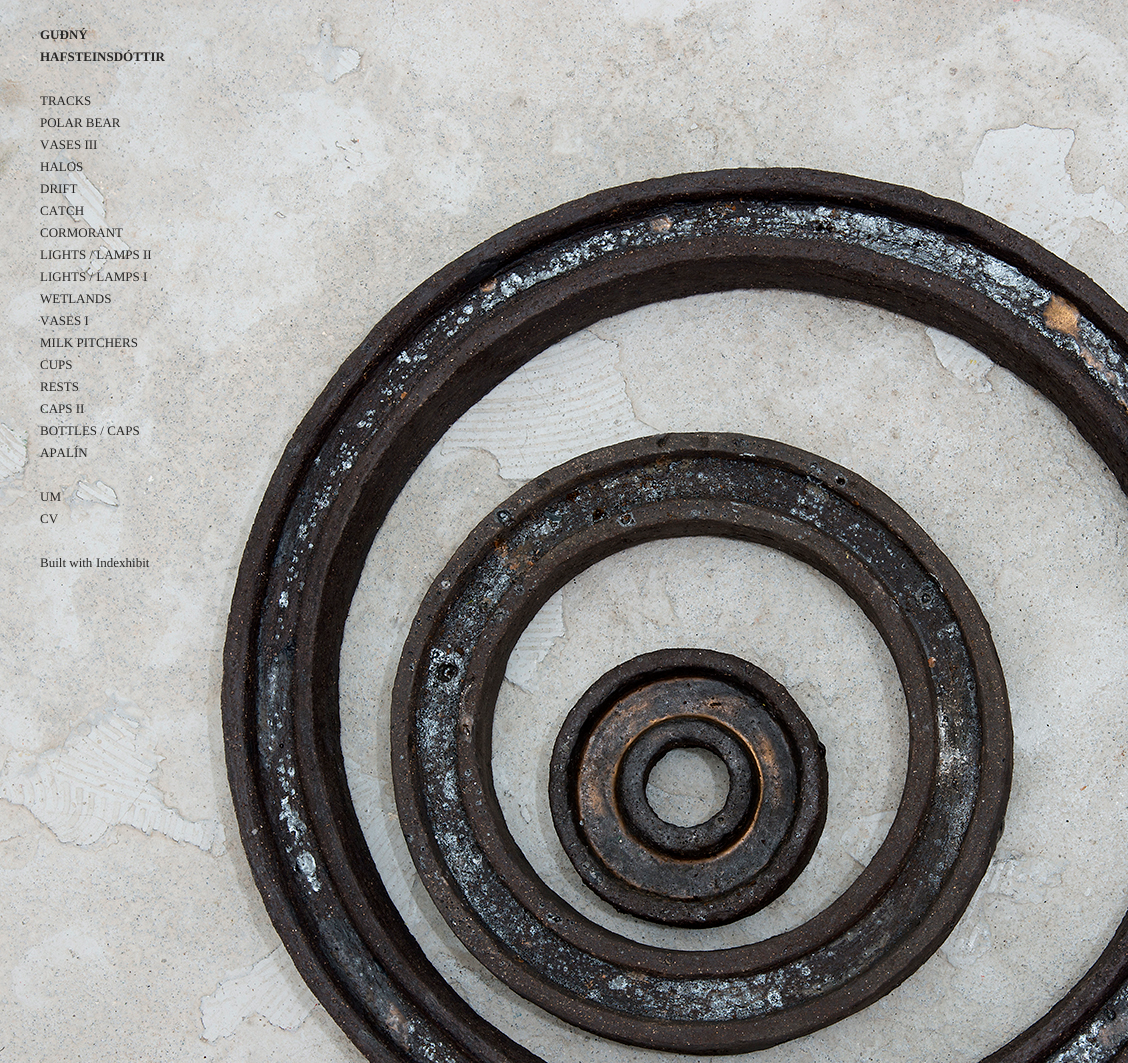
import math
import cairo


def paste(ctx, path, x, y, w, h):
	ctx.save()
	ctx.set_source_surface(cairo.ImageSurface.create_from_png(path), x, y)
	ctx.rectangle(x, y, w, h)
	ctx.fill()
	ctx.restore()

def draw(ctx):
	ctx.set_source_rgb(1, 1, 1)
	ctx.paint()
	paste(ctx, 'media/1.png', 0, 0, 1128, 1063)
	ctx.select_font_face('Liberation Serif', cairo.FONT_SLANT_NORMAL, cairo.FONT_WEIGHT_BOLD)
	ctx.set_font_size(13)
	ctx.set_source_rgb(0.157, 0.153, 0.149)
	ctx.move_to(40, 39)
	ctx.show_text('GUÐNÝ')
	ctx.move_to(40, 61)
	ctx.show_text('HAFSTEINSDÓTTIR')
	ctx.select_font_face('Liberation Serif')
	for x, y, s in [
		(40, 105, 'TRACKS'),
		(40, 127, 'POLAR BEAR'),
		(40, 149, 'VASES III'),
		(40, 171, 'HALOS'),
		(40, 193, 'DRIFT'),
		(40, 215, 'CATCH'),
		(40, 237, 'CORMORANT'),
		(40, 259, 'LIGHTS / LAMPS II'),
		(40, 281, 'LIGHTS / LAMPS I'),
		(40, 303, 'WETLANDS'),
		(40, 325, 'VASES I'),
		(40, 347, 'MILK PITCHERS'),
		(40, 369, 'CUPS'),
		(40, 391, 'RESTS'),
		(40, 413, 'CAPS II'),
		(40, 435, 'BOTTLES / CAPS'),
		(40, 457, 'APALÍN'),
		(40, 501, 'UM'),
		(40, 523, 'CV'),
		(40, 567, 'Built with'),
		(96, 567, 'Indexhibit'),
	]:
		ctx.move_to(x, y)
		ctx.show_text(s)


surface = cairo.ImageSurface(cairo.FORMAT_RGB24, 1128, 1063)
ctx = cairo.Context(surface)
options = cairo.FontOptions()
options.set_hint_metrics(cairo.HINT_METRICS_OFF)
options.set_hint_style(cairo.HINT_STYLE_NONE)
ctx.set_font_options(options)
ctx.set_miter_limit(4)
draw(ctx)
surface.write_to_png('image.png')
